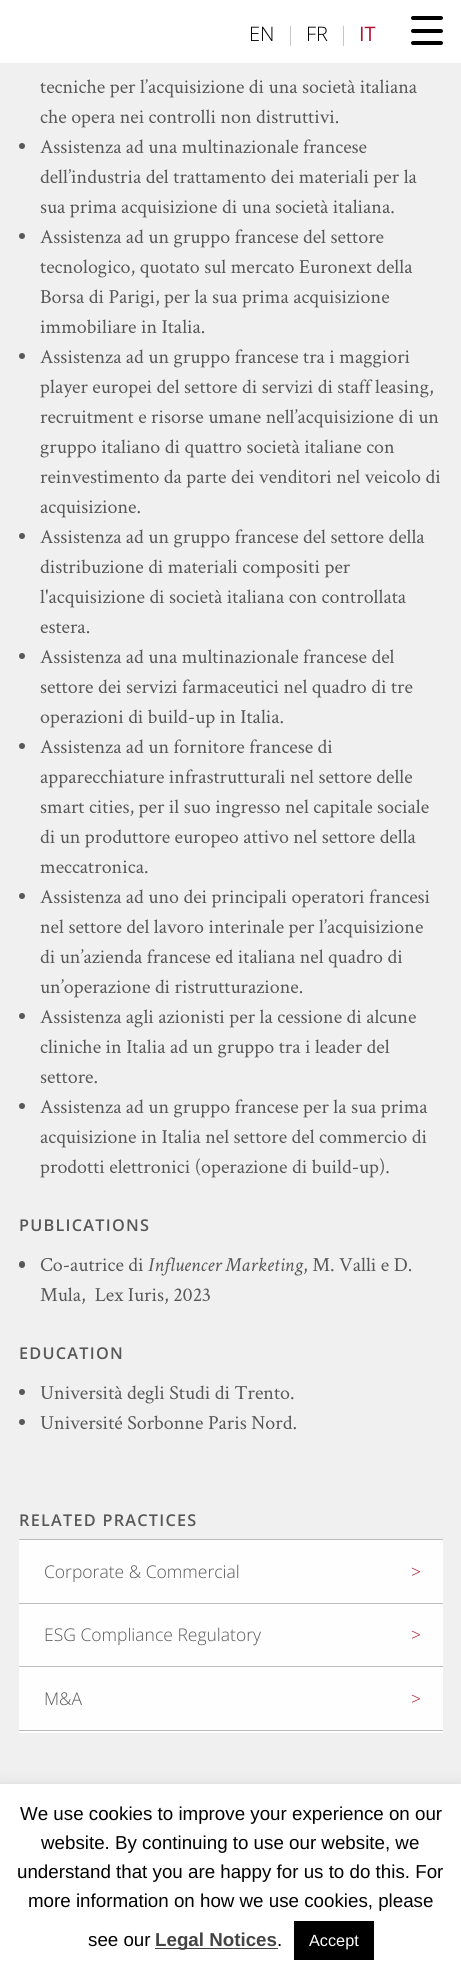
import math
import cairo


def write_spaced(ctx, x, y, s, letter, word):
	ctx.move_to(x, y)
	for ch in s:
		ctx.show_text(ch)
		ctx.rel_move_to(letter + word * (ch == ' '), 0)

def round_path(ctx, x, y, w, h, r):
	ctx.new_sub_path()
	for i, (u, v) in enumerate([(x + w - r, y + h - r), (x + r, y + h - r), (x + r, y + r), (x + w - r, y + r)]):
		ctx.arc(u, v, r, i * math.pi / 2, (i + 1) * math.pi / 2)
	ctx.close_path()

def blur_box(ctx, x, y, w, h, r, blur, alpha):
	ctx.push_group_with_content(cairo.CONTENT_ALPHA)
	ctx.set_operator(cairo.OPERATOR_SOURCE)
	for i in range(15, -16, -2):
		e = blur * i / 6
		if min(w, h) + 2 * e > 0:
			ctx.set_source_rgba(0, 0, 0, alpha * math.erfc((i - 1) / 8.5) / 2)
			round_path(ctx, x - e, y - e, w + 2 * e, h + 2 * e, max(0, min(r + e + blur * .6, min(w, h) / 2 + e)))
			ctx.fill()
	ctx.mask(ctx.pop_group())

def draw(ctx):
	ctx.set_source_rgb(0.941, 0.941, 0.941)
	ctx.paint()
	ctx.set_source_rgb(1, 1, 1)
	ctx.rectangle(0, 0, 461, 63)
	ctx.fill()
	ctx.select_font_face('Open Sans Light')
	ctx.set_font_size(20)
	ctx.set_source_rgb(0, 0, 0)
	ctx.move_to(249, 41)
	ctx.show_text('EN')
	ctx.set_source_rgb(0.733, 0.737, 0.745)
	ctx.move_to(285, 41)
	ctx.show_text('|')
	ctx.set_source_rgb(0, 0, 0)
	ctx.move_to(306, 41)
	ctx.show_text('FR')
	ctx.set_source_rgb(0.733, 0.737, 0.745)
	ctx.move_to(338, 41)
	ctx.show_text('|')
	ctx.select_font_face('Open Sans')
	ctx.set_source_rgb(0.694, 0.071, 0.184)
	ctx.move_to(359, 41)
	ctx.show_text('IT')
	ctx.set_source_rgb(0, 0, 0)
	round_path(ctx, 411, 16, 32, 4, 2)
	ctx.fill()
	round_path(ctx, 411, 29, 32, 4, 2)
	ctx.fill()
	round_path(ctx, 411, 41, 32, 4, 2)
	ctx.fill()
	ctx.select_font_face('Crimson Text')
	ctx.set_source_rgb(0.345, 0.345, 0.345)
	ctx.move_to(40, 93)
	ctx.show_text('tecniche per l’acquisizione di una società italiana')
	ctx.move_to(40, 123)
	ctx.show_text('che opera nei controlli non distruttivi.')
	ctx.new_path()
	ctx.arc(22, 146, 3, 0, 2 * math.pi)
	ctx.fill()
	for x, y, s in [
		(40, 153, 'Assistenza ad una multinazionale francese'),
		(40, 183, 'dell’industria del trattamento dei materiali per la'),
		(40, 213, 'sua prima acquisizione di una società italiana.'),
	]:
		ctx.move_to(x, y)
		ctx.show_text(s)
	ctx.new_path()
	ctx.arc(22, 236, 3, 0, 2 * math.pi)
	ctx.fill()
	for x, y, s in [
		(40, 243, 'Assistenza ad un gruppo francese del settore'),
		(40, 273, 'tecnologico, quotato sul mercato Euronext della'),
		(40, 303, 'Borsa di Parigi, per la sua prima acquisizione'),
		(40, 333, 'immobiliare in Italia.'),
	]:
		ctx.move_to(x, y)
		ctx.show_text(s)
	ctx.new_path()
	ctx.arc(22, 356, 3, 0, 2 * math.pi)
	ctx.fill()
	for x, y, s in [
		(40, 363, 'Assistenza ad un gruppo francese tra i maggiori'),
		(40, 393, 'player europei del settore di servizi di staff leasing,'),
		(40, 423, 'recruitment e risorse umane nell’acquisizione di un'),
		(40, 453, 'gruppo italiano di quattro società italiane con'),
		(40, 483, 'reinvestimento da parte dei venditori nel veicolo di'),
		(40, 513, 'acquisizione.'),
	]:
		ctx.move_to(x, y)
		ctx.show_text(s)
	ctx.new_path()
	ctx.arc(22, 536, 3, 0, 2 * math.pi)
	ctx.fill()
	for x, y, s in [
		(40, 543, 'Assistenza ad un gruppo francese del settore della'),
		(40, 573, 'distribuzione di materiali compositi per'),
		(40, 603, 'l\'acquisizione di società italiana con controllata'),
		(40, 633, 'estera.'),
	]:
		ctx.move_to(x, y)
		ctx.show_text(s)
	ctx.new_path()
	ctx.arc(22, 656, 3, 0, 2 * math.pi)
	ctx.fill()
	for x, y, s in [
		(40, 663, 'Assistenza ad una multinazionale francese del'),
		(40, 693, 'settore dei servizi farmaceutici nel quadro di tre'),
		(40, 723, 'operazioni di build-up in Italia.'),
	]:
		ctx.move_to(x, y)
		ctx.show_text(s)
	ctx.new_path()
	ctx.arc(22, 746, 3, 0, 2 * math.pi)
	ctx.fill()
	for x, y, s in [
		(40, 753, 'Assistenza ad un fornitore francese di'),
		(40, 783, 'apparecchiature infrastrutturali nel settore delle'),
		(40, 813, 'smart cities, per il suo ingresso nel capitale sociale'),
		(40, 843, 'di un produttore europeo attivo nel settore della'),
		(40, 873, 'meccatronica.'),
	]:
		ctx.move_to(x, y)
		ctx.show_text(s)
	ctx.new_path()
	ctx.arc(22, 896, 3, 0, 2 * math.pi)
	ctx.fill()
	for x, y, s in [
		(40, 903, 'Assistenza ad uno dei principali operatori francesi'),
		(40, 933, 'nel settore del lavoro interinale per l’acquisizione'),
		(40, 963, 'di un’azienda francese ed italiana nel quadro di'),
		(40, 993, 'un’operazione di ristrutturazione.'),
	]:
		ctx.move_to(x, y)
		ctx.show_text(s)
	ctx.new_path()
	ctx.arc(22, 1016, 3, 0, 2 * math.pi)
	ctx.fill()
	for x, y, s in [
		(40, 1023, 'Assistenza agli azionisti per la cessione di alcune'),
		(40, 1053, 'cliniche in Italia ad un gruppo tra i leader del'),
		(40, 1083, 'settore.'),
	]:
		ctx.move_to(x, y)
		ctx.show_text(s)
	ctx.new_path()
	ctx.arc(22, 1106, 3, 0, 2 * math.pi)
	ctx.fill()
	for x, y, s in [
		(40, 1113, 'Assistenza ad un gruppo francese per la sua prima'),
		(40, 1143, 'acquisizione in Italia nel settore del commercio di'),
		(40, 1173, 'prodotti elettronici (operazione di build-up).'),
	]:
		ctx.move_to(x, y)
		ctx.show_text(s)
	ctx.select_font_face('Open Sans SemiBold')
	ctx.set_font_size(16.25)
	write_spaced(ctx, 19, 1231, 'PUBLICATIONS', 1.25, 0)
	round_path(ctx, 19, 1261, 6, 7, 3)
	ctx.fill()
	ctx.select_font_face('Crimson Text')
	ctx.set_font_size(20)
	ctx.move_to(40, 1271)
	ctx.show_text('Co-autrice di')
	ctx.select_font_face('Crimson Text', cairo.FONT_SLANT_ITALIC)
	ctx.move_to(148, 1271)
	ctx.show_text('Influencer Marketing')
	ctx.select_font_face('Crimson Text')
	ctx.move_to(303, 1271)
	ctx.show_text(', M. Valli e D.')
	ctx.move_to(40, 1301)
	ctx.show_text('Mula,  Lex Iuris, 2023')
	ctx.select_font_face('Open Sans SemiBold')
	ctx.set_font_size(16.25)
	write_spaced(ctx, 19, 1359, 'EDUCATION', 1.25, 0)
	ctx.new_path()
	ctx.arc(22, 1392, 3, 0, 2 * math.pi)
	ctx.fill()
	ctx.select_font_face('Crimson Text')
	ctx.set_font_size(20)
	ctx.move_to(40, 1399)
	ctx.show_text('Università degli Studi di Trento.')
	ctx.new_path()
	ctx.arc(22, 1422, 3, 0, 2 * math.pi)
	ctx.fill()
	ctx.move_to(40, 1429)
	ctx.show_text('Université Sorbonne Paris Nord.')
	ctx.set_source_rgb(0.733, 0.737, 0.745)
	ctx.rectangle(19, 1539, 424, 1)
	ctx.fill()
	ctx.select_font_face('Open Sans SemiBold')
	ctx.set_font_size(16.25)
	ctx.set_source_rgb(0.345, 0.345, 0.345)
	write_spaced(ctx, 19, 1526, 'RELATED PRACTICES', 1.25, 0)
	ctx.set_source_rgb(0.996, 0.996, 0.996)
	ctx.rectangle(19, 1540, 424, 190)
	ctx.fill()
	ctx.set_source_rgb(0.733, 0.737, 0.745)
	ctx.rectangle(19, 1603, 424, 1)
	ctx.fill()
	ctx.select_font_face('Open Sans Light')
	ctx.set_font_size(17.5)
	ctx.set_source_rgb(0.345, 0.345, 0.345)
	ctx.move_to(44, 1578)
	ctx.show_text('Corporate & Commercial')
	ctx.set_source_rgb(0.694, 0.071, 0.184)
	ctx.move_to(411, 1578)
	ctx.show_text('>')
	ctx.set_source_rgb(0.733, 0.737, 0.745)
	ctx.rectangle(19, 1666, 424, 1)
	ctx.fill()
	ctx.set_source_rgb(0.345, 0.345, 0.345)
	ctx.move_to(44, 1641)
	ctx.show_text('ESG Compliance Regulatory')
	ctx.set_source_rgb(0.694, 0.071, 0.184)
	ctx.move_to(411, 1641)
	ctx.show_text('>')
	ctx.set_source_rgb(1, 1, 1)
	ctx.new_path()
	ctx.move_to(19, 1731)
	ctx.line_to(19, 1733)
	ctx.line_to(443, 1733)
	ctx.line_to(443, 1669)
	ctx.line_to(442, 1669)
	ctx.line_to(442, 1731)
	ctx.close_path()
	ctx.fill()
	ctx.set_source_rgb(0.733, 0.737, 0.745)
	ctx.rectangle(19, 1730, 424, 1)
	ctx.fill()
	ctx.set_source_rgb(0.345, 0.345, 0.345)
	ctx.move_to(44, 1705)
	ctx.show_text('M&A')
	ctx.set_source_rgb(0.694, 0.071, 0.184)
	ctx.move_to(411, 1705)
	ctx.show_text('>')
	ctx.set_source_rgb(0.675, 0.671, 0.671)
	blur_box(ctx, 0, 1783, 461, 191, 0, 6, 0.3)
	ctx.set_source_rgb(1, 1, 1)
	ctx.rectangle(0, 1784, 461, 190)
	ctx.fill()
	ctx.select_font_face('Liberation Sans')
	ctx.set_font_size(18.75)
	ctx.set_source_rgb(0, 0, 0)
	for x, y, s in [
		(20, 1820, 'We use cookies to improve your experience on our'),
		(41, 1849, 'website. By continuing to use our website, we'),
		(17, 1878, 'understand that you are happy for us to do this. For'),
		(28, 1907, 'more information on how we use cookies, please'),
		(88, 1946, 'see our'),
	]:
		ctx.move_to(x, y)
		ctx.show_text(s)
	ctx.set_source_rgb(0.267, 0.267, 0.267)
	ctx.rectangle(155, 1948, 123, 1)
	ctx.fill()
	ctx.select_font_face('Liberation Sans', cairo.FONT_SLANT_NORMAL, cairo.FONT_WEIGHT_BOLD)
	ctx.move_to(155, 1946)
	ctx.show_text('Legal Notices')
	ctx.select_font_face('Liberation Sans')
	ctx.set_source_rgb(0, 0, 0)
	ctx.move_to(277, 1946)
	ctx.show_text('.')
	ctx.rectangle(294, 1921, 80, 39)
	ctx.fill()
	ctx.set_font_size(16.25)
	ctx.set_source_rgb(1, 1, 1)
	ctx.move_to(309, 1946)
	ctx.show_text('Accept')


surface = cairo.ImageSurface(cairo.FORMAT_RGB24, 461, 1974)
ctx = cairo.Context(surface)
options = cairo.FontOptions()
options.set_hint_metrics(cairo.HINT_METRICS_OFF)
options.set_hint_style(cairo.HINT_STYLE_NONE)
ctx.set_font_options(options)
ctx.set_miter_limit(4)
draw(ctx)
surface.write_to_png('image.png')
